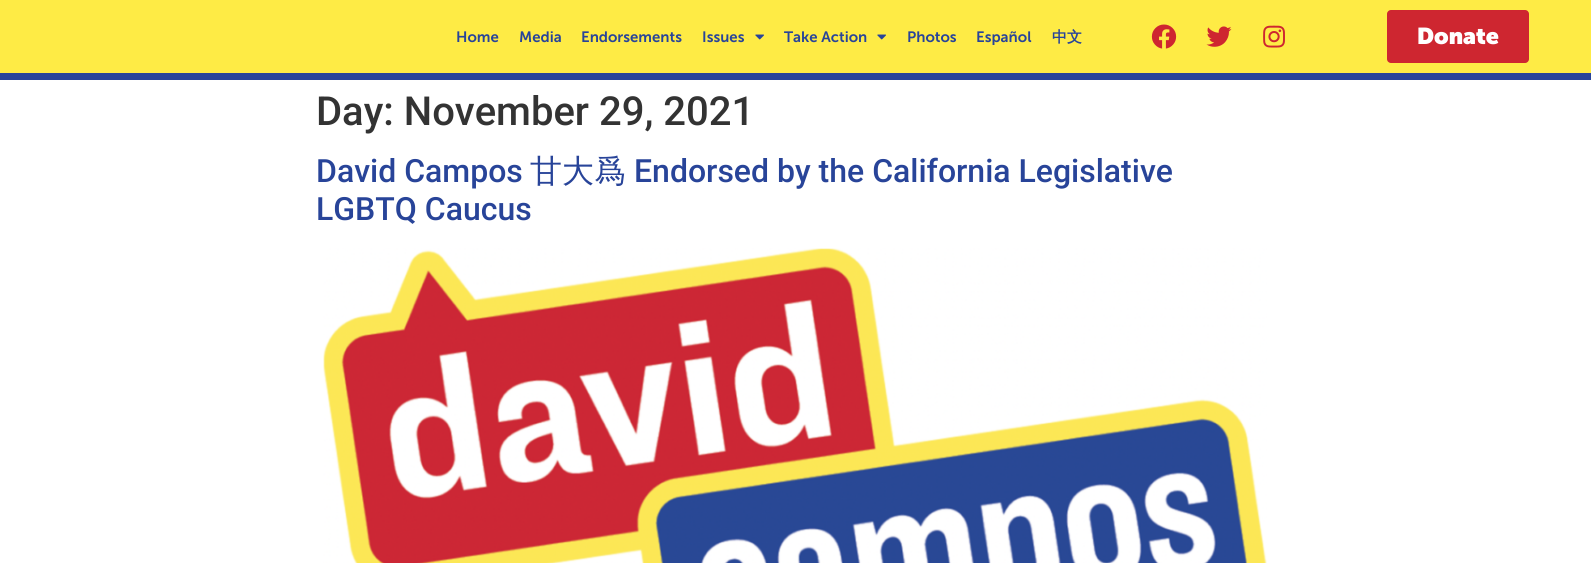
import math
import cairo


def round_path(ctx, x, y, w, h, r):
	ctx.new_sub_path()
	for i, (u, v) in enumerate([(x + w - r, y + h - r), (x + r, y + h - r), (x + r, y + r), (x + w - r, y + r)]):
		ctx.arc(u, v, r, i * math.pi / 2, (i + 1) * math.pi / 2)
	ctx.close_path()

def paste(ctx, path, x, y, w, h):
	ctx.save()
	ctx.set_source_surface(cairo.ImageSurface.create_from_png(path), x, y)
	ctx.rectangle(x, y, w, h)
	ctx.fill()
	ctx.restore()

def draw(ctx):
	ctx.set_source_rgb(1, 1, 1)
	ctx.paint()
	ctx.set_source_rgb(0.996, 0.918, 0.271)
	ctx.rectangle(0, 0, 1591, 73)
	ctx.fill()
	ctx.set_source_rgb(0.157, 0.267, 0.6)
	ctx.rectangle(0, 73, 1591, 7)
	ctx.fill()
	ctx.select_font_face('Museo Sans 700 SemiBold')
	ctx.set_font_size(15)
	for x, y, s in [
		(456, 42, 'Home'),
		(519, 42, 'Media'),
		(581, 42, 'Endorsements'),
		(702, 42, 'Issues'),
	]:
		ctx.move_to(x, y)
		ctx.show_text(s)
	paste(ctx, 'media/1.png', 755, 34, 9, 6)
	ctx.move_to(784, 42)
	ctx.show_text('Take Action')
	paste(ctx, 'media/1.png', 877, 34, 9, 6)
	ctx.move_to(907, 42)
	ctx.show_text('Photos')
	ctx.move_to(976, 42)
	ctx.show_text('Español')
	ctx.select_font_face('WenQuanYi Zen Hei', cairo.FONT_SLANT_NORMAL, cairo.FONT_WEIGHT_BOLD)
	ctx.move_to(1052, 42)
	ctx.show_text('中文')
	paste(ctx, 'media/2.png', 1151, 24, 26, 25)
	paste(ctx, 'media/3.png', 1206, 26, 26, 21)
	paste(ctx, 'media/4.png', 1263, 25, 22, 23)
	ctx.set_source_rgb(0.808, 0.149, 0.188)
	round_path(ctx, 1387, 10, 142, 53, 4)
	ctx.fill()
	ctx.select_font_face('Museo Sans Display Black')
	ctx.set_font_size(23)
	ctx.set_source_rgb(1, 1, 1)
	ctx.move_to(1417, 44)
	ctx.show_text('Donate')
	ctx.select_font_face('Roboto Medium')
	ctx.set_font_size(40)
	ctx.set_source_rgb(0.2, 0.2, 0.2)
	ctx.move_to(316, 125)
	ctx.show_text('Day: November 29, 2021')
	ctx.set_font_size(32)
	ctx.set_source_rgb(0.157, 0.267, 0.6)
	ctx.move_to(316, 182)
	ctx.show_text('David Campos')
	ctx.select_font_face('WenQuanYi Zen Hei Medium')
	ctx.move_to(530, 182)
	ctx.show_text('甘大爲')
	ctx.select_font_face('Roboto Medium')
	ctx.move_to(634, 182)
	ctx.show_text('Endorsed by the California Legislative')
	ctx.move_to(316, 220)
	ctx.show_text('LGBTQ Caucus')
	paste(ctx, 'media/5.png', 323, 248, 944, 315)


surface = cairo.ImageSurface(cairo.FORMAT_RGB24, 1591, 563)
ctx = cairo.Context(surface)
options = cairo.FontOptions()
options.set_hint_metrics(cairo.HINT_METRICS_OFF)
options.set_hint_style(cairo.HINT_STYLE_NONE)
ctx.set_font_options(options)
ctx.set_miter_limit(4)
draw(ctx)
surface.write_to_png('image.png')
